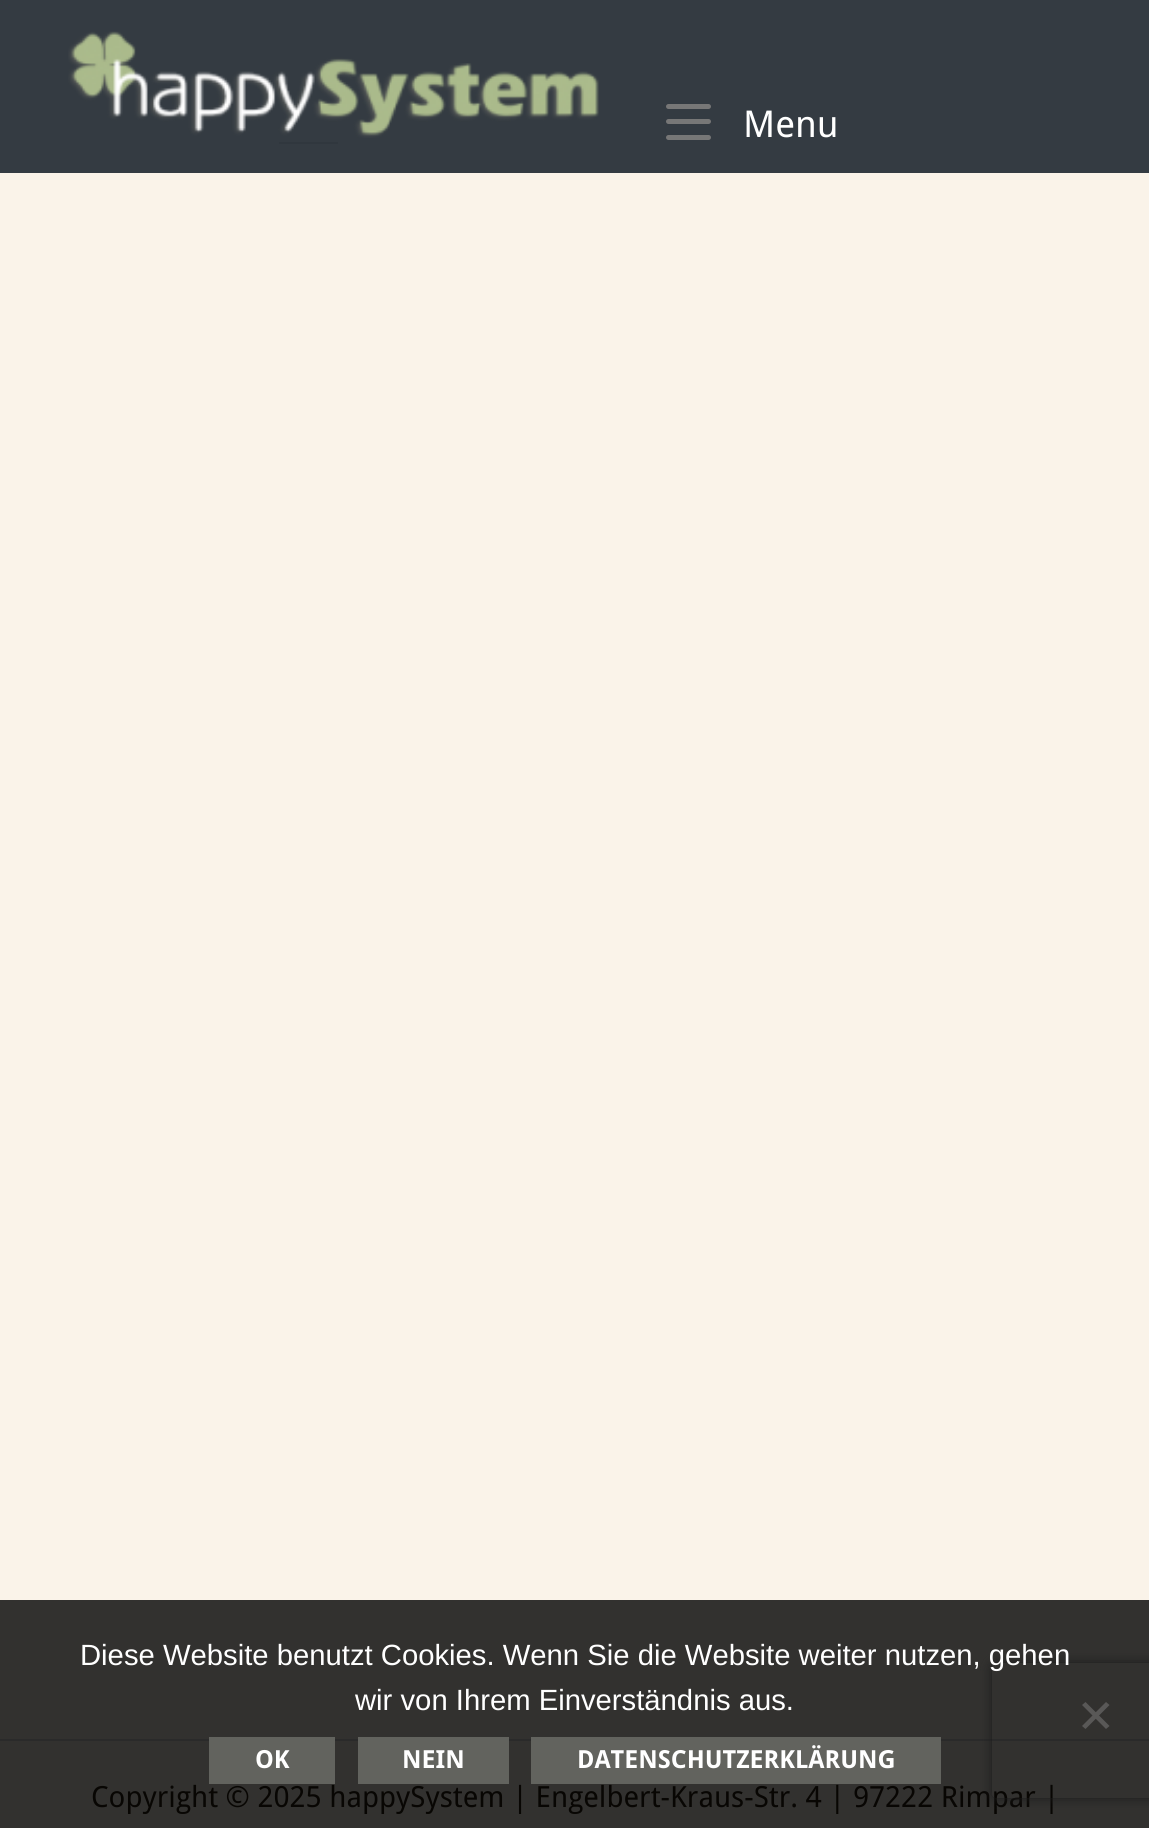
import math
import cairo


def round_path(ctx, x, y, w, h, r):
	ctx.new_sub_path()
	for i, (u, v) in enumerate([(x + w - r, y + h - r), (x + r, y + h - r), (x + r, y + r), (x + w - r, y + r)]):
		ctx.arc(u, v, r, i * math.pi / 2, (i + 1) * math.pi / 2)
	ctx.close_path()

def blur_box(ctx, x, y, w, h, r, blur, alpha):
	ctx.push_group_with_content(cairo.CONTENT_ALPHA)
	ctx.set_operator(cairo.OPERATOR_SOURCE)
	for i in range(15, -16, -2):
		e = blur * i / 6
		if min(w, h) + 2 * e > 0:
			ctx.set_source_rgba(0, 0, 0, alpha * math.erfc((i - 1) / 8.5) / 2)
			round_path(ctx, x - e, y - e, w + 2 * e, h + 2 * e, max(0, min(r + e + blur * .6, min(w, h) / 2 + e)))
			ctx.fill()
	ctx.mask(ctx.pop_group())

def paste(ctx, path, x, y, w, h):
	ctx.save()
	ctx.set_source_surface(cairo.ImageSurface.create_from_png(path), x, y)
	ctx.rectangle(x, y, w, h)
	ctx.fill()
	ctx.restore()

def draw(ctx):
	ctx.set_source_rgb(0.98, 0.953, 0.914)
	ctx.paint()
	ctx.set_source_rgb(0.196, 0.192, 0.184)
	ctx.rectangle(0, 1600, 1149, 228)
	ctx.fill()
	ctx.set_source_rgb(0.204, 0.231, 0.259)
	ctx.rectangle(0, 0, 1149, 173)
	ctx.fill()
	paste(ctx, 'media/1.png', 68, 31, 531, 107)
	ctx.set_source_rgb(0.467, 0.467, 0.467)
	round_path(ctx, 666, 104, 45, 5, 2.5)
	ctx.fill()
	round_path(ctx, 666, 119, 45, 5, 2.5)
	ctx.fill()
	round_path(ctx, 666, 135, 45, 5, 2.5)
	ctx.fill()
	ctx.select_font_face('Droid Sans')
	ctx.set_font_size(37)
	ctx.set_source_rgb(1, 1, 1)
	ctx.move_to(743, 137)
	ctx.show_text('Menu')
	ctx.set_source_rgb(0.188, 0.216, 0.243)
	ctx.rectangle(279, 142, 59, 2)
	ctx.fill()
	ctx.set_source_rgb(0.165, 0.165, 0.165)
	ctx.rectangle(0, 1739, 1149, 2)
	ctx.fill()
	ctx.set_font_size(29.15)
	ctx.set_source_rgb(0.035, 0.024, 0.012)
	ctx.move_to(91, 1807)
	ctx.show_text('Copyright © 2025 happySystem | Engelbert-Kraus-Str. 4 | 97222 Rimpar |')
	ctx.save()
	ctx.set_fill_rule(cairo.FILL_RULE_EVEN_ODD)
	ctx.new_path()
	ctx.move_to(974, 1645)
	ctx.line_to(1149, 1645)
	ctx.line_to(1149, 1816)
	ctx.line_to(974, 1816)
	ctx.close_path()
	ctx.move_to(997, 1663)
	ctx.line_to(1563, 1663)
	ctx.curve_to(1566, 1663, 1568, 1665, 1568, 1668)
	ctx.line_to(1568, 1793)
	ctx.curve_to(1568, 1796, 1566, 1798, 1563, 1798)
	ctx.line_to(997, 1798)
	ctx.curve_to(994, 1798, 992, 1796, 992, 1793)
	ctx.line_to(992, 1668)
	ctx.curve_to(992, 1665, 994, 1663, 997, 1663)
	ctx.close_path()
	ctx.clip()
	ctx.set_source_rgb(0.102, 0.102, 0.102)
	blur_box(ctx, 992, 1663, 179, 135, 5, 5.5, 1)
	ctx.restore()
	ctx.select_font_face('Liberation Sans')
	ctx.set_font_size(29.25)
	ctx.set_source_rgb(1, 1, 1)
	ctx.move_to(80, 1665)
	ctx.show_text('Diese Website benutzt Cookies. Wenn Sie die Website weiter nutzen, gehen')
	ctx.move_to(355, 1710)
	ctx.show_text('wir von Ihrem Einverständnis aus.')
	ctx.set_source_rgb(0.349, 0.345, 0.341)
	ctx.new_path()
	ctx.move_to(1106, 1702)
	ctx.line_to(1109.5, 1705)
	ctx.line_to(1085.5, 1729)
	ctx.line_to(1082, 1726)
	ctx.close_path()
	ctx.fill()
	ctx.new_path()
	ctx.move_to(1082, 1705)
	ctx.line_to(1085.5, 1702)
	ctx.line_to(1109.5, 1726)
	ctx.line_to(1106, 1729)
	ctx.close_path()
	ctx.fill()
	ctx.set_source_rgb(0.384, 0.388, 0.369)
	ctx.rectangle(209, 1737, 126, 47)
	ctx.fill()
	ctx.select_font_face('Droid Sans', cairo.FONT_SLANT_NORMAL, cairo.FONT_WEIGHT_BOLD)
	ctx.set_font_size(24.9)
	ctx.set_source_rgb(1, 1, 1)
	ctx.move_to(255, 1768)
	ctx.show_text('OK')
	ctx.set_source_rgb(0.384, 0.388, 0.369)
	ctx.rectangle(358, 1737, 151, 47)
	ctx.fill()
	ctx.set_source_rgb(1, 1, 1)
	ctx.move_to(402, 1768)
	ctx.show_text('NEIN')
	ctx.set_source_rgb(0.384, 0.388, 0.369)
	ctx.rectangle(531, 1737, 410, 47)
	ctx.fill()
	ctx.set_source_rgb(1, 1, 1)
	ctx.move_to(577, 1768)
	ctx.show_text('DATENSCHUTZERKLÄRUNG')


surface = cairo.ImageSurface(cairo.FORMAT_RGB24, 1149, 1828)
ctx = cairo.Context(surface)
options = cairo.FontOptions()
options.set_hint_metrics(cairo.HINT_METRICS_OFF)
options.set_hint_style(cairo.HINT_STYLE_NONE)
ctx.set_font_options(options)
ctx.set_miter_limit(4)
draw(ctx)
surface.write_to_png('image.png')
